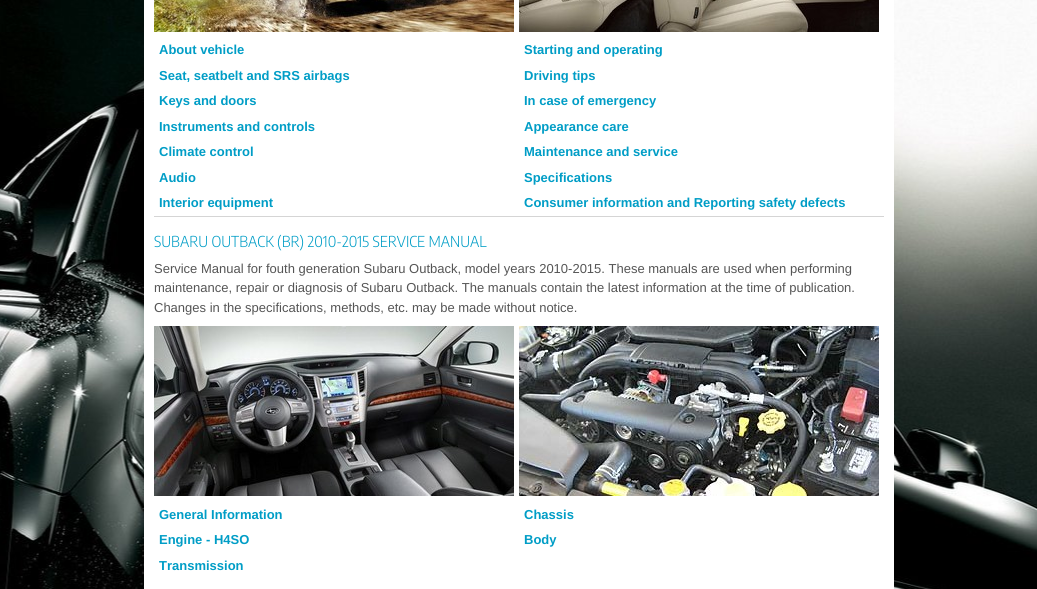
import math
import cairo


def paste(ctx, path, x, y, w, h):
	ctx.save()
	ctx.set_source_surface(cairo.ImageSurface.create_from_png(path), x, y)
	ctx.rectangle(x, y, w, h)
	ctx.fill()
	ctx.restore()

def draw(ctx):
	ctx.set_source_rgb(1, 1, 1)
	ctx.paint()
	paste(ctx, 'media/1.png', 0, 0, 1037, 589)
	ctx.set_source_rgb(1, 1, 1)
	ctx.rectangle(144, 0, 750, 589)
	ctx.fill()
	paste(ctx, 'media/2.png', 154, 0, 360, 32)
	paste(ctx, 'media/3.png', 519, 0, 360, 32)
	ctx.select_font_face('Liberation Sans', cairo.FONT_SLANT_NORMAL, cairo.FONT_WEIGHT_BOLD)
	ctx.set_font_size(13)
	ctx.set_source_rgb(0, 0.616, 0.776)
	for x, y, s in [
		(159, 54, 'About vehicle'),
		(159, 80, 'Seat, seatbelt and SRS airbags'),
		(159, 105, 'Keys and doors'),
		(159, 131, 'Instruments and controls'),
		(159, 156, 'Climate control'),
		(159, 182, 'Audio'),
		(159, 207, 'Interior equipment'),
		(524, 54, 'Starting and operating'),
		(524, 80, 'Driving tips'),
		(524, 105, 'In case of emergency'),
		(524, 131, 'Appearance care'),
		(524, 156, 'Maintenance and service'),
		(524, 182, 'Specifications'),
		(524, 207, 'Consumer information and Reporting safety defects'),
	]:
		ctx.move_to(x, y)
		ctx.show_text(s)
	ctx.set_source_rgb(0.835, 0.835, 0.835)
	ctx.rectangle(154, 216, 730, 1)
	ctx.fill()
	ctx.select_font_face('Encode Sans Semi Condensed Light')
	ctx.set_font_size(15)
	ctx.set_source_rgb(0, 0.616, 0.776)
	ctx.move_to(154, 247)
	ctx.show_text('SUBARU OUTBACK (BR) 2010-2015 SERVICE MANUAL')
	ctx.select_font_face('Liberation Sans')
	ctx.set_font_size(13)
	ctx.set_source_rgb(0.333, 0.333, 0.333)
	for x, y, s in [
		(154, 273, 'Service Manual for fouth generation Subaru Outback, model years 2010-2015. These manuals are used when performing'),
		(154, 292, 'maintenance, repair or diagnosis of Subaru Outback. The manuals contain the latest information at the time of publication.'),
		(154, 312, 'Changes in the specifications, methods, etc. may be made without notice.'),
	]:
		ctx.move_to(x, y)
		ctx.show_text(s)
	paste(ctx, 'media/4.png', 154, 326, 360, 170)
	paste(ctx, 'media/5.png', 519, 326, 360, 170)
	ctx.select_font_face('Liberation Sans', cairo.FONT_SLANT_NORMAL, cairo.FONT_WEIGHT_BOLD)
	ctx.set_source_rgb(0, 0.616, 0.776)
	for x, y, s in [
		(159, 519, 'General Information'),
		(159, 544, 'Engine - H4SO'),
		(159, 570, 'Transmission'),
		(524, 519, 'Chassis'),
		(524, 544, 'Body'),
	]:
		ctx.move_to(x, y)
		ctx.show_text(s)


surface = cairo.ImageSurface(cairo.FORMAT_RGB24, 1037, 589)
ctx = cairo.Context(surface)
options = cairo.FontOptions()
options.set_hint_metrics(cairo.HINT_METRICS_OFF)
options.set_hint_style(cairo.HINT_STYLE_NONE)
ctx.set_font_options(options)
ctx.set_miter_limit(4)
draw(ctx)
surface.write_to_png('image.png')
